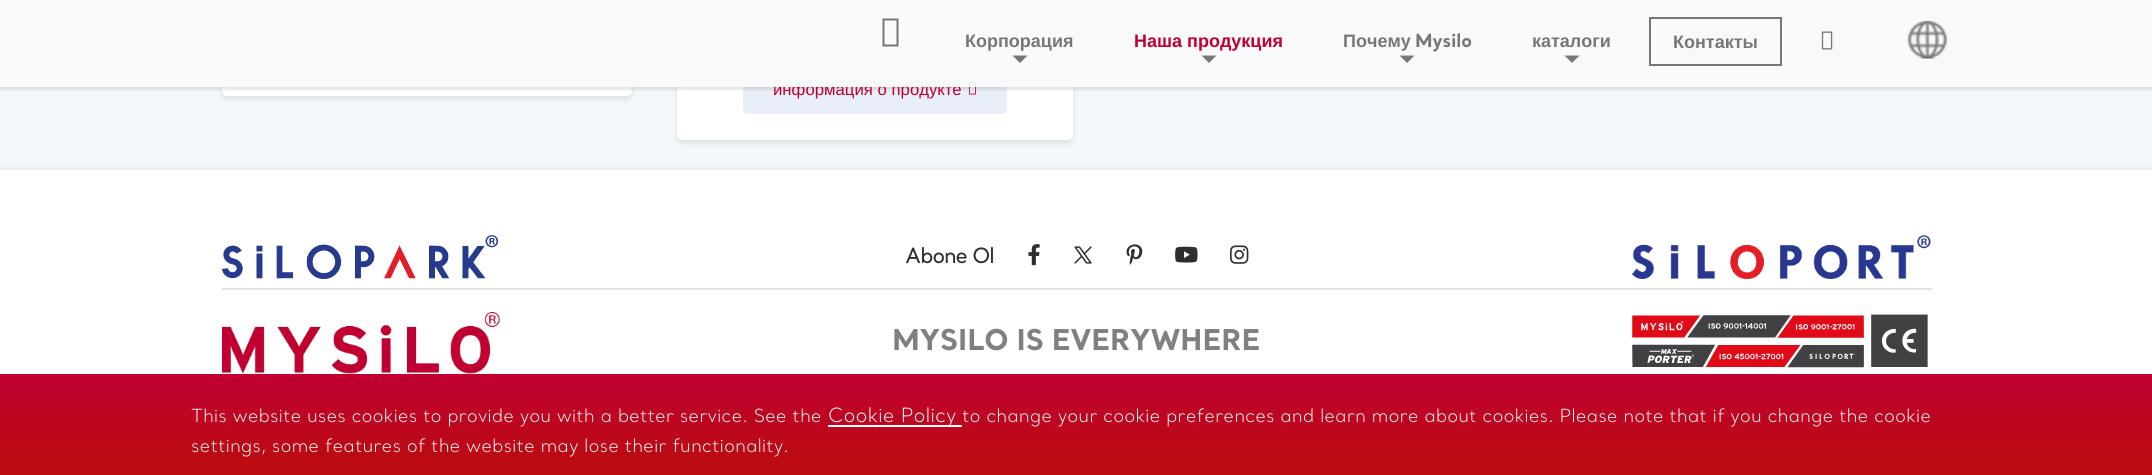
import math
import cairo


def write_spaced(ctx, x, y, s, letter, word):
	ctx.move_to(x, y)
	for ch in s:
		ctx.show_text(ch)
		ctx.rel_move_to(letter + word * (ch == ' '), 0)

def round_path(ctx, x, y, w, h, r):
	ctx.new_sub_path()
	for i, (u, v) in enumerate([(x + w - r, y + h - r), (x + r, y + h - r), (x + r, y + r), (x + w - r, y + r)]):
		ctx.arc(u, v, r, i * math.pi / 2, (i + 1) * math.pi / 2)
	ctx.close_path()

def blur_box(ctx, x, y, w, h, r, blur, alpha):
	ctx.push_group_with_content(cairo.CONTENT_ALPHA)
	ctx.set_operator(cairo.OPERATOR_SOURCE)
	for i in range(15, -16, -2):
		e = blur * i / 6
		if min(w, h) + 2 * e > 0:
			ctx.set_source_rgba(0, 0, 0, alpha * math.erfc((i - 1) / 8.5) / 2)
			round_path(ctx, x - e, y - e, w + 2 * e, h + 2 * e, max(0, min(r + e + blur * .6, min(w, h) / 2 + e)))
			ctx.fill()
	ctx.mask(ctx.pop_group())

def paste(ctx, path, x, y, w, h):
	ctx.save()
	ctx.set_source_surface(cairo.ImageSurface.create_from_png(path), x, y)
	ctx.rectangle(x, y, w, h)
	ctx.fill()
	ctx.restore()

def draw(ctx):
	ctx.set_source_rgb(0.953, 0.969, 0.984)
	ctx.paint()
	ctx.set_source_rgb(0, 0, 0)
	blur_box(ctx, 222, -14, 410, 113, 5, 3, 0.1)
	ctx.set_source_rgb(1, 1, 1)
	round_path(ctx, 222, -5, 410, 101, 5)
	ctx.fill()
	ctx.set_source_rgb(0.91, 0.937, 0.969)
	ctx.rectangle(222, 26, 410, 2)
	ctx.fill()
	ctx.set_source_rgb(0, 0, 0)
	blur_box(ctx, 677, -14, 396, 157, 5, 3, 0.1)
	ctx.set_source_rgb(1, 1, 1)
	round_path(ctx, 677, -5, 396, 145, 5)
	ctx.fill()
	paste(ctx, 'media/3.png', 1022, 0, 33, 1)
	ctx.set_source_rgb(0.91, 0.937, 0.969)
	round_path(ctx, 743, 69, 264, 45, 5)
	ctx.fill()
	paste(ctx, 'media/4.png', 968, 82, 8, 13)
	ctx.save()
	ctx.rectangle(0, 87, 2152, 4)
	ctx.clip()
	ctx.set_source_rgb(0, 0, 0)
	blur_box(ctx, -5, 3, 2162, 87, 0, 1.5, 0.1)
	ctx.restore()
	ctx.select_font_face('Liberation Sans')
	ctx.set_font_size(16.75)
	ctx.set_source_rgb(0.753, 0, 0.192)
	ctx.move_to(773, 95)
	ctx.show_text('информация о продукте')
	ctx.set_source_rgba(0.98, 0.98, 0.98, 0.92)
	ctx.rectangle(0, 0, 2152, 87)
	ctx.fill()
	ctx.set_source_rgb(0.467, 0.467, 0.467)
	ctx.new_path()
	ctx.move_to(882.5, 46.5)
	ctx.line_to(882.5, 18.5)
	ctx.line_to(898.5, 18.5)
	ctx.line_to(898.5, 46.5)
	ctx.close_path()
	ctx.move_to(884.5, 44.5)
	ctx.line_to(896.5, 44.5)
	ctx.line_to(896.5, 20.5)
	ctx.line_to(884.5, 20.5)
	ctx.close_path()
	ctx.fill()
	ctx.select_font_face('Liberation Sans', cairo.FONT_SLANT_NORMAL, cairo.FONT_WEIGHT_BOLD)
	ctx.set_font_size(18)
	ctx.move_to(965, 47)
	ctx.show_text('Корпорация')
	ctx.new_path()
	ctx.move_to(1012.5, 55.5)
	ctx.line_to(1027.5, 55.5)
	ctx.line_to(1020, 63)
	ctx.close_path()
	ctx.fill()
	ctx.set_source_rgb(0.753, 0, 0.192)
	ctx.move_to(1134, 47)
	ctx.show_text('Наша продукция')
	ctx.set_source_rgb(0.467, 0.467, 0.467)
	ctx.new_path()
	ctx.move_to(1201.5, 55.5)
	ctx.line_to(1216.5, 55.5)
	ctx.line_to(1209, 63)
	ctx.close_path()
	ctx.fill()
	ctx.move_to(1343, 47)
	ctx.show_text('Почему')
	ctx.select_font_face('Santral', cairo.FONT_SLANT_NORMAL, cairo.FONT_WEIGHT_BOLD)
	ctx.move_to(1415, 47)
	ctx.show_text('Mysilo')
	ctx.new_path()
	ctx.move_to(1399.5, 55.5)
	ctx.line_to(1414.5, 55.5)
	ctx.line_to(1407, 63)
	ctx.close_path()
	ctx.fill()
	ctx.select_font_face('Liberation Sans', cairo.FONT_SLANT_NORMAL, cairo.FONT_WEIGHT_BOLD)
	ctx.move_to(1532, 47)
	ctx.show_text('каталоги')
	ctx.new_path()
	ctx.move_to(1564.5, 55.5)
	ctx.line_to(1579.5, 55.5)
	ctx.line_to(1572, 63)
	ctx.close_path()
	ctx.fill()
	ctx.rectangle(1650, 18, 131, 47)
	ctx.stroke()
	ctx.move_to(1673, 48)
	ctx.show_text('Контакты')
	paste(ctx, 'media/1.png', 1821, 31, 12, 19)
	paste(ctx, 'media/2.png', 1907, 21, 40, 38)
	ctx.set_source_rgb(0, 0, 0)
	blur_box(ctx, 0, 171, 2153, 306, 0, 4.5, 0.1)
	ctx.set_source_rgb(1, 1, 1)
	ctx.rectangle(0, 170, 2152, 204)
	ctx.fill()
	paste(ctx, 'media/5.png', 222, 235, 277, 44)
	ctx.select_font_face('Santral Medium')
	ctx.set_font_size(21)
	ctx.set_source_rgb(0.18, 0.18, 0.18)
	write_spaced(ctx, 905, 263, 'Abone Ol', -1, 0)
	paste(ctx, 'media/6.png', 1028, 244, 12, 22)
	paste(ctx, 'media/7.png', 1074, 246, 18, 18)
	paste(ctx, 'media/8.png', 1126, 244, 17, 21)
	paste(ctx, 'media/9.png', 1175, 246, 23, 17)
	paste(ctx, 'media/10.png', 1230, 245, 19, 19)
	paste(ctx, 'media/11.png', 1632, 235, 299, 44)
	ctx.set_source_rgb(0.886, 0.886, 0.886)
	ctx.rectangle(222, 288, 1710, 2)
	ctx.fill()
	paste(ctx, 'media/12.png', 222, 312, 278, 62)
	ctx.select_font_face('Santral', cairo.FONT_SLANT_NORMAL, cairo.FONT_WEIGHT_BOLD)
	ctx.set_font_size(28.5)
	ctx.set_source_rgb(0.502, 0.502, 0.502)
	ctx.move_to(892, 350)
	ctx.show_text('MYSILO IS EVERYWHERE')
	paste(ctx, 'media/13.png', 1632, 314, 296, 54)
	gradient = cairo.LinearGradient(1076, 373, 1076, 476)
	gradient.add_color_stop_rgba(0, 0.753, 0, 0.192, 1)
	gradient.add_color_stop_rgba(1, 0.733, 0.051, 0.051, 1)
	ctx.set_source(gradient)
	ctx.rectangle(0, 374, 2152, 101)
	ctx.fill()
	ctx.select_font_face('Santral Light')
	ctx.set_font_size(18)
	ctx.set_source_rgb(1, 1, 1)
	ctx.move_to(191, 422)
	ctx.show_text('This website uses cookies to provide you with a better service. See the')
	ctx.rectangle(828, 425, 134, 2)
	ctx.fill()
	ctx.set_font_size(19.5)
	ctx.move_to(828, 422)
	ctx.show_text('Cookie Policy')
	ctx.set_font_size(18)
	ctx.move_to(962, 422)
	ctx.show_text('to change your cookie preferences and learn more about cookies. Please note that if you change the cookie')
	ctx.move_to(191, 452)
	ctx.show_text('settings, some features of the website may lose their functionality.')


surface = cairo.ImageSurface(cairo.FORMAT_RGB24, 2152, 475)
ctx = cairo.Context(surface)
options = cairo.FontOptions()
options.set_hint_metrics(cairo.HINT_METRICS_OFF)
options.set_hint_style(cairo.HINT_STYLE_NONE)
ctx.set_font_options(options)
ctx.set_miter_limit(4)
draw(ctx)
surface.write_to_png('image.png')
